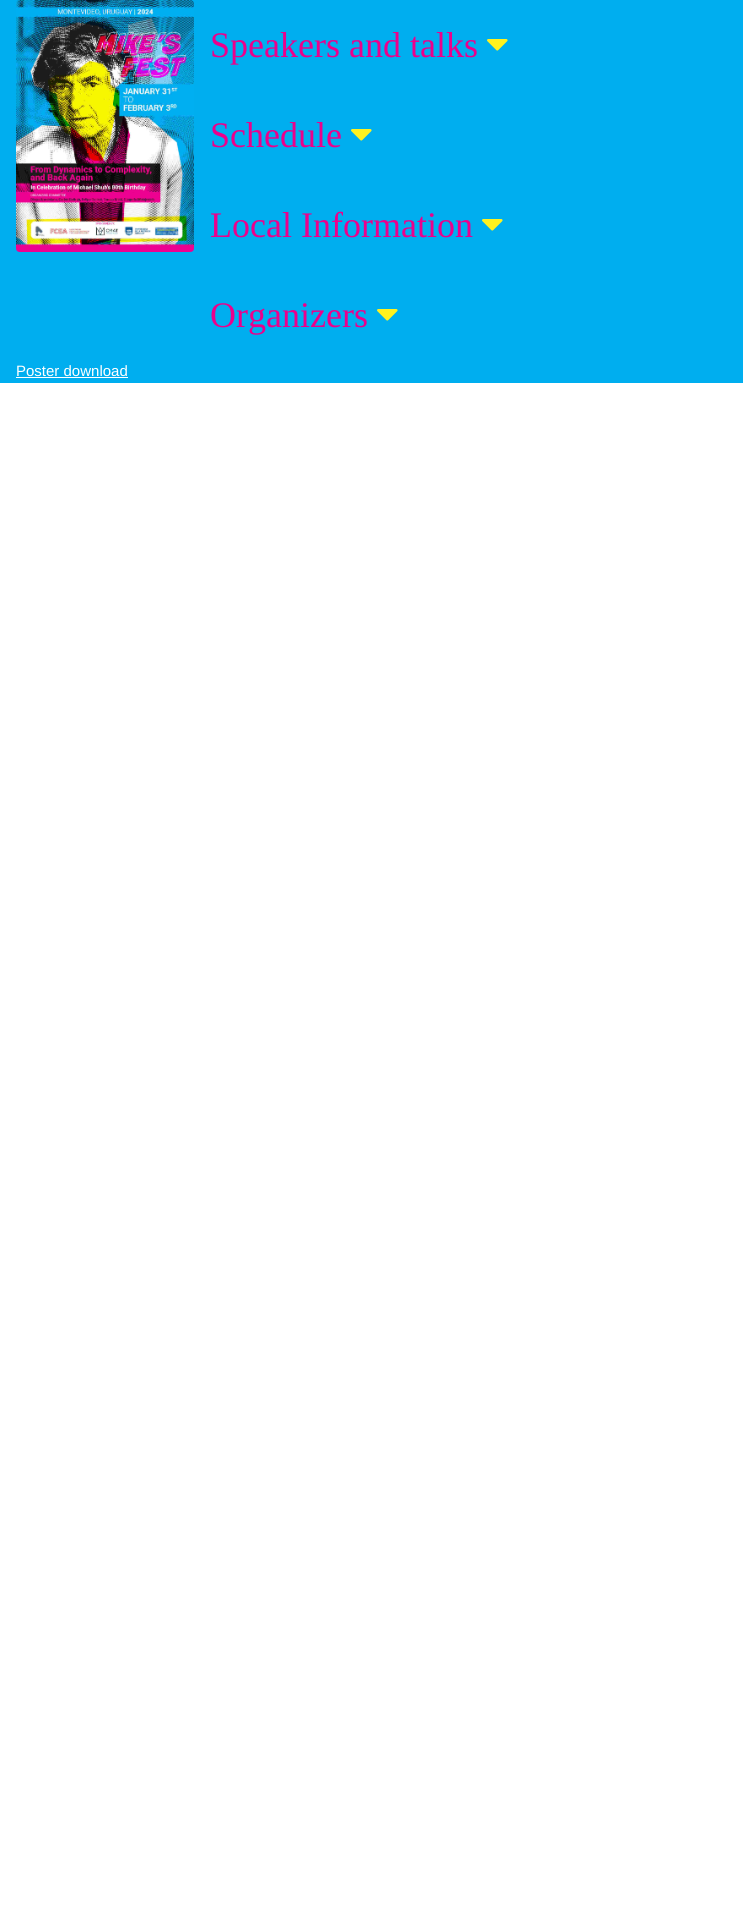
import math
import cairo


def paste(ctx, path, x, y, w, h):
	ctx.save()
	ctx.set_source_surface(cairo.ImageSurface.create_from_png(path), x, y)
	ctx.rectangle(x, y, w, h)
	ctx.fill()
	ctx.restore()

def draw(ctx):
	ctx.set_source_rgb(1, 1, 1)
	ctx.paint()
	ctx.set_source_rgb(0, 0.682, 0.937)
	ctx.rectangle(0, 0, 743, 383)
	ctx.fill()
	paste(ctx, 'media/1.png', 16, 0, 178, 252)
	ctx.select_font_face('Liberation Serif')
	ctx.set_font_size(36)
	ctx.set_source_rgb(0.925, 0, 0.549)
	ctx.move_to(210, 57)
	ctx.show_text('Speakers and talks')
	paste(ctx, 'media/2.png', 487, 39, 21, 12)
	ctx.move_to(210, 147)
	ctx.show_text('Schedule')
	paste(ctx, 'media/2.png', 351, 129, 21, 12)
	ctx.move_to(210, 237)
	ctx.show_text('Local Information')
	paste(ctx, 'media/2.png', 482, 219, 21, 12)
	ctx.move_to(210, 327)
	ctx.show_text('Organizers')
	paste(ctx, 'media/2.png', 377, 309, 21, 12)
	ctx.select_font_face('Liberation Sans')
	ctx.set_font_size(15)
	ctx.set_source_rgb(1, 1, 1)
	ctx.move_to(16, 376)
	ctx.show_text('Poster download')
	ctx.rectangle(16, 377, 112, 1)
	ctx.fill()


surface = cairo.ImageSurface(cairo.FORMAT_RGB24, 743, 1932)
ctx = cairo.Context(surface)
options = cairo.FontOptions()
options.set_hint_metrics(cairo.HINT_METRICS_OFF)
options.set_hint_style(cairo.HINT_STYLE_NONE)
ctx.set_font_options(options)
ctx.set_miter_limit(4)
draw(ctx)
surface.write_to_png('image.png')
